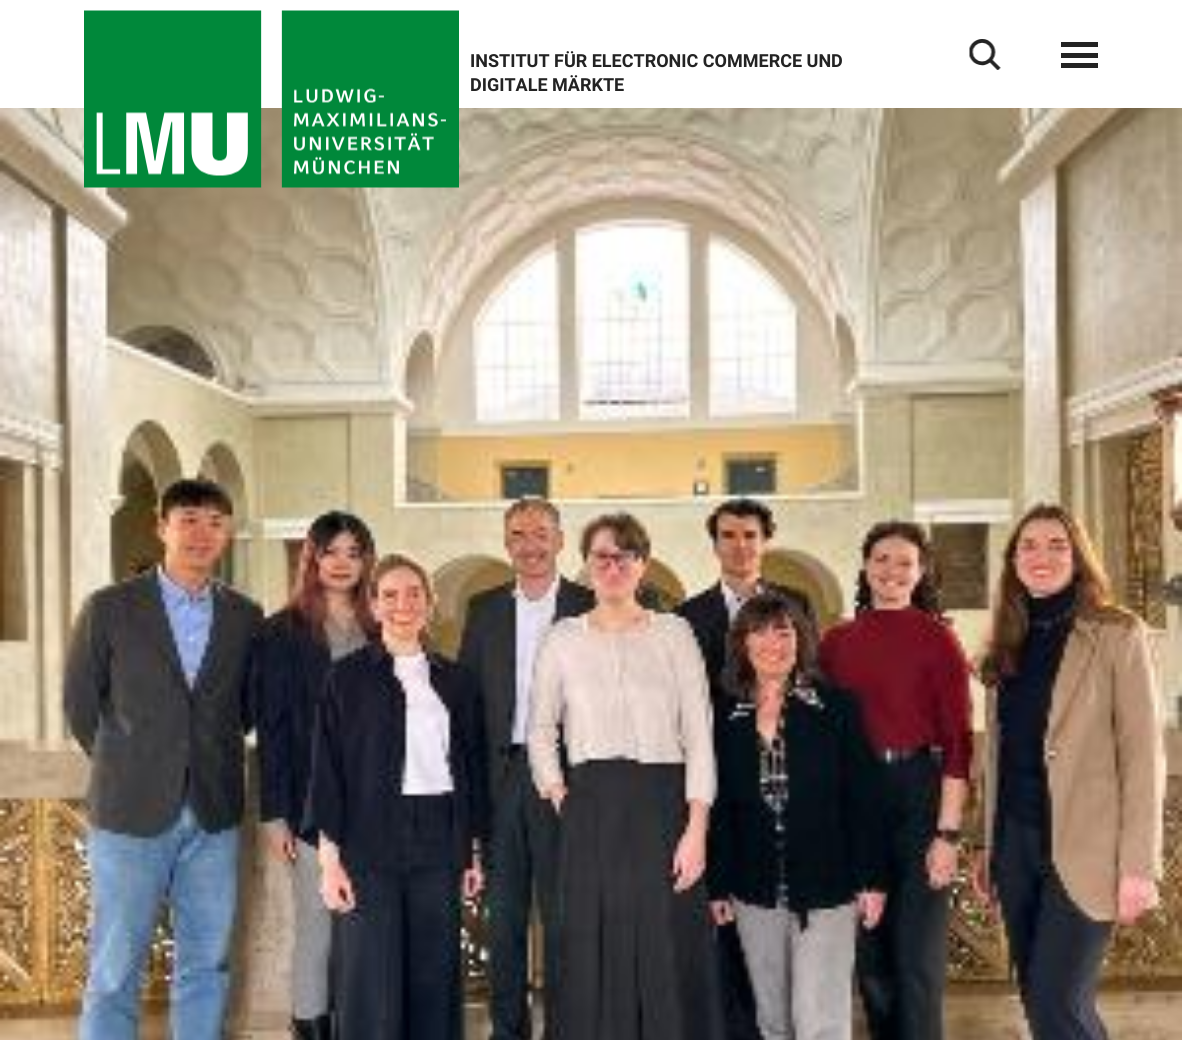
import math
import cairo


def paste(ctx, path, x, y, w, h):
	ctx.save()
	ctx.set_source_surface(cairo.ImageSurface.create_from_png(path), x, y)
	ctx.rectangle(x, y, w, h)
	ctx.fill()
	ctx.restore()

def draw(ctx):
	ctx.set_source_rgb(1, 1, 1)
	ctx.paint()
	paste(ctx, 'media/3.png', 0, 108, 1182, 932)
	paste(ctx, 'media/1.png', 84, 10, 375, 178)
	ctx.select_font_face('Roboto', cairo.FONT_SLANT_NORMAL, cairo.FONT_WEIGHT_BOLD)
	ctx.set_font_size(18)
	ctx.set_source_rgb(0.137, 0.137, 0.137)
	ctx.move_to(470, 67)
	ctx.show_text('INSTITUT FÜR ELECTRONIC COMMERCE UND')
	ctx.move_to(470, 91)
	ctx.show_text('DIGITALE MÄRKTE')
	paste(ctx, 'media/2.png', 969, 39, 32, 31)
	ctx.rectangle(1061, 42, 37, 5)
	ctx.rectangle(1061, 53, 37, 5)
	ctx.rectangle(1061, 63, 37, 5)
	ctx.fill()


surface = cairo.ImageSurface(cairo.FORMAT_RGB24, 1182, 1040)
ctx = cairo.Context(surface)
options = cairo.FontOptions()
options.set_hint_metrics(cairo.HINT_METRICS_OFF)
options.set_hint_style(cairo.HINT_STYLE_NONE)
ctx.set_font_options(options)
ctx.set_miter_limit(4)
draw(ctx)
surface.write_to_png('image.png')
